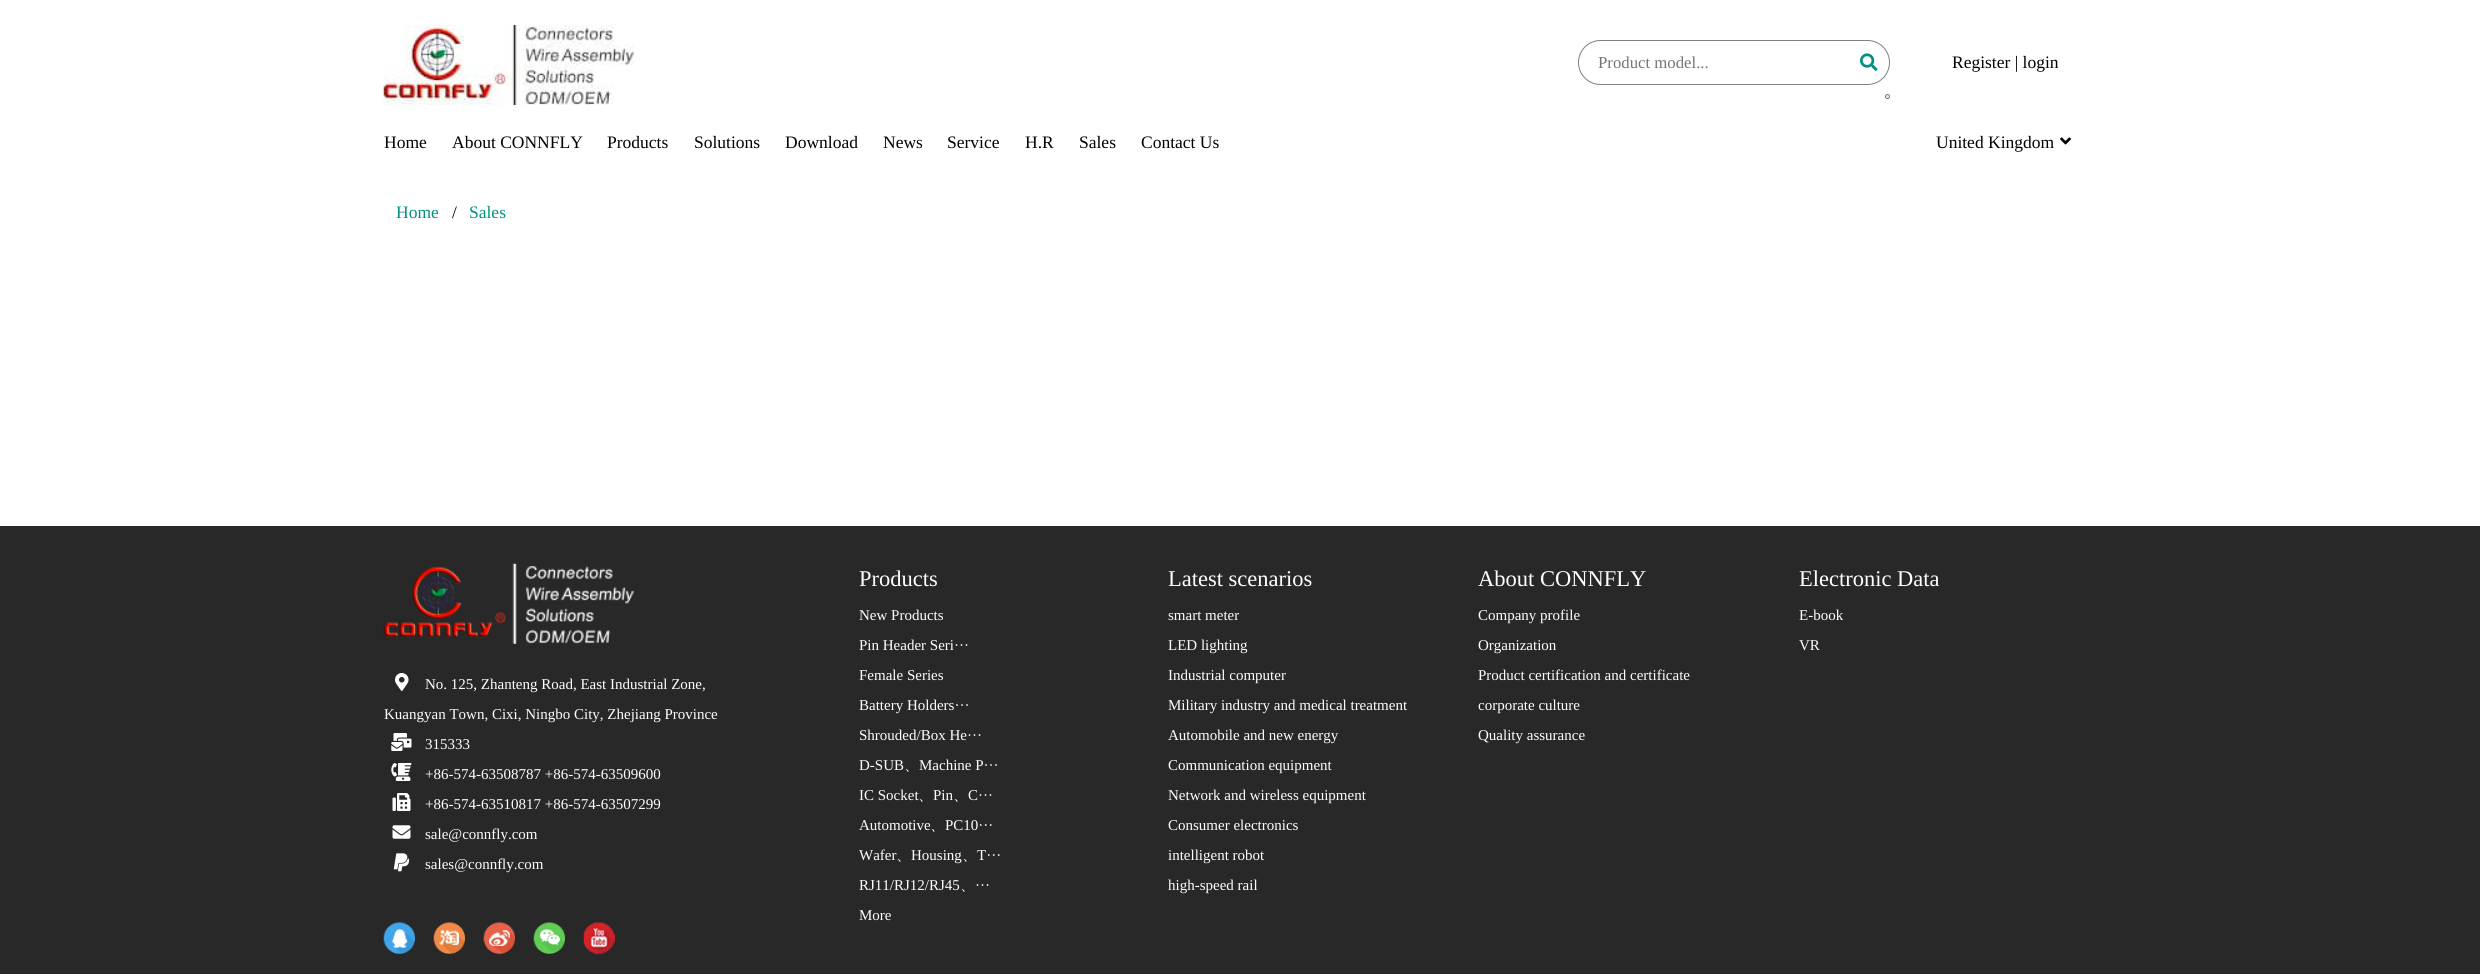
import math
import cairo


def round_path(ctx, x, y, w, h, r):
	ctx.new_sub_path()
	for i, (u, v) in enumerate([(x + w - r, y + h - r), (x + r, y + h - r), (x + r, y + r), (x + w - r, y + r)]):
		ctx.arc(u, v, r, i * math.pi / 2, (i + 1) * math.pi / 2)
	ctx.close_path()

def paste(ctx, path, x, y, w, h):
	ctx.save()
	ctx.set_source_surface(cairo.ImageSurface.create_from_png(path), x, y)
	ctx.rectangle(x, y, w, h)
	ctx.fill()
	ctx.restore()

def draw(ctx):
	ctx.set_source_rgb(1, 1, 1)
	ctx.paint()
	paste(ctx, 'media/1.png', 383, 25, 251, 80)
	round_path(ctx, 1578.5, 40.5, 311, 44, 22)
	ctx.set_source_rgb(0.502, 0.502, 0.502)
	ctx.set_line_width(1)
	ctx.stroke()
	ctx.select_font_face('Liberation Serif')
	ctx.set_font_size(16.75)
	ctx.set_source_rgb(0.459, 0.459, 0.459)
	ctx.move_to(1598, 68)
	ctx.show_text('Product model...')
	ctx.set_source_rgb(0.937, 0.937, 0.937)
	ctx.new_path()
	ctx.arc(1887.5, 96.5, 2, 0, 2 * math.pi)
	ctx.fill_preserve()
	ctx.set_source_rgb(0.463, 0.463, 0.463)
	ctx.stroke()
	paste(ctx, 'media/2.png', 1860, 53, 18, 18)
	ctx.set_font_size(17.5)
	ctx.set_source_rgb(0, 0, 0)
	for x, y, s in [
		(1952, 68, 'Register | login'),
		(384, 148, 'Home'),
		(452, 148, 'About CONNFLY'),
		(607, 148, 'Products'),
		(694, 148, 'Solutions'),
		(785, 148, 'Download'),
		(883, 148, 'News'),
		(947, 148, 'Service'),
		(1025, 148, 'H.R'),
		(1079, 148, 'Sales'),
		(1141, 148, 'Contact Us'),
		(1936, 148, 'United Kingdom'),
	]:
		ctx.move_to(x, y)
		ctx.show_text(s)
	paste(ctx, 'media/3.png', 2060, 137, 11, 8)
	ctx.set_source_rgb(0, 0.573, 0.498)
	ctx.move_to(396, 218)
	ctx.show_text('Home')
	ctx.set_source_rgb(0, 0, 0)
	ctx.move_to(452, 218)
	ctx.show_text('/')
	ctx.set_source_rgb(0, 0.573, 0.498)
	ctx.move_to(469, 218)
	ctx.show_text('Sales')
	ctx.set_source_rgb(0.157, 0.157, 0.157)
	ctx.rectangle(0, 526, 2480, 448)
	ctx.fill()
	paste(ctx, 'media/4.png', 383, 563, 251, 81)
	paste(ctx, 'media/5.png', 395, 673, 14, 18)
	ctx.set_font_size(15)
	ctx.set_source_rgb(1, 1, 1)
	ctx.move_to(425, 689)
	ctx.show_text('No. 125, Zhanteng Road, East Industrial Zone,')
	ctx.move_to(384, 719)
	ctx.show_text('Kuangyan Town, Cixi, Ningbo City, Zhejiang Province')
	paste(ctx, 'media/6.png', 391, 733, 21, 18)
	ctx.move_to(425, 749)
	ctx.show_text('315333')
	paste(ctx, 'media/7.png', 391, 763, 21, 18)
	ctx.move_to(425, 779)
	ctx.show_text('+86-574-63508787 +86-574-63509600')
	paste(ctx, 'media/8.png', 392, 793, 19, 18)
	ctx.move_to(425, 809)
	ctx.show_text('+86-574-63510817 +86-574-63507299')
	paste(ctx, 'media/9.png', 392, 825, 19, 14)
	ctx.move_to(425, 839)
	ctx.show_text('sale@connfly.com')
	paste(ctx, 'media/10.png', 393, 853, 17, 19)
	ctx.move_to(425, 869)
	ctx.show_text('sales@connfly.com')
	paste(ctx, 'media/11.png', 383, 922, 32, 32)
	paste(ctx, 'media/12.png', 433, 922, 32, 32)
	paste(ctx, 'media/13.png', 483, 922, 32, 32)
	paste(ctx, 'media/14.png', 533, 922, 32, 32)
	paste(ctx, 'media/15.png', 583, 922, 32, 32)
	ctx.set_font_size(22.5)
	ctx.move_to(859, 586)
	ctx.show_text('Products')
	ctx.set_font_size(15)
	for x, y, s in [
		(859, 620, 'New Products'),
		(859, 650, 'Pin Header Seri···'),
		(859, 680, 'Female Series'),
		(859, 710, 'Battery Holders···'),
		(859, 740, 'Shrouded/Box He···'),
		(859, 770, 'D-SUB'),
	]:
		ctx.move_to(x, y)
		ctx.show_text(s)
	ctx.select_font_face('WenQuanYi Zen Hei Medium')
	ctx.move_to(904, 770)
	ctx.show_text('、')
	ctx.select_font_face('Liberation Serif')
	ctx.move_to(919, 770)
	ctx.show_text('Machine P···')
	ctx.move_to(859, 800)
	ctx.show_text('IC Socket')
	ctx.select_font_face('WenQuanYi Zen Hei Medium')
	ctx.move_to(918, 800)
	ctx.show_text('、')
	ctx.select_font_face('Liberation Serif')
	ctx.move_to(933, 800)
	ctx.show_text('Pin')
	ctx.select_font_face('WenQuanYi Zen Hei Medium')
	ctx.move_to(953, 800)
	ctx.show_text('、')
	ctx.select_font_face('Liberation Serif')
	ctx.move_to(968, 800)
	ctx.show_text('C···')
	ctx.move_to(859, 830)
	ctx.show_text('Automotive')
	ctx.select_font_face('WenQuanYi Zen Hei Medium')
	ctx.move_to(930, 830)
	ctx.show_text('、')
	ctx.select_font_face('Liberation Serif')
	ctx.move_to(945, 830)
	ctx.show_text('PC10···')
	ctx.move_to(859, 860)
	ctx.show_text('Wafer')
	ctx.select_font_face('WenQuanYi Zen Hei Medium')
	ctx.move_to(896, 860)
	ctx.show_text('、')
	ctx.select_font_face('Liberation Serif')
	ctx.move_to(911, 860)
	ctx.show_text('Housing')
	ctx.select_font_face('WenQuanYi Zen Hei Medium')
	ctx.move_to(962, 860)
	ctx.show_text('、')
	ctx.select_font_face('Liberation Serif')
	for x, y, s in [
		(977, 860, 'T···'),
		(859, 890, 'RJ11/RJ12/RJ45'),
		(975, 890, '···'),
	]:
		ctx.move_to(x, y)
		ctx.show_text(s)
	ctx.select_font_face('WenQuanYi Zen Hei Medium')
	ctx.move_to(960, 890)
	ctx.show_text('、')
	ctx.select_font_face('Liberation Serif')
	ctx.move_to(859, 920)
	ctx.show_text('More')
	ctx.set_font_size(22.5)
	ctx.move_to(1168, 586)
	ctx.show_text('Latest scenarios')
	ctx.set_font_size(15)
	for x, y, s in [
		(1168, 620, 'smart meter'),
		(1168, 650, 'LED lighting'),
		(1168, 680, 'Industrial computer'),
		(1168, 710, 'Military industry and medical treatment'),
		(1168, 740, 'Automobile and new energy'),
		(1168, 770, 'Communication equipment'),
		(1168, 800, 'Network and wireless equipment'),
		(1168, 830, 'Consumer electronics'),
		(1168, 860, 'intelligent robot'),
		(1168, 890, 'high-speed rail'),
	]:
		ctx.move_to(x, y)
		ctx.show_text(s)
	ctx.set_font_size(22.5)
	ctx.move_to(1478, 586)
	ctx.show_text('About CONNFLY')
	ctx.set_font_size(15)
	for x, y, s in [
		(1478, 620, 'Company profile'),
		(1478, 650, 'Organization'),
		(1478, 680, 'Product certification and certificate'),
		(1478, 710, 'corporate culture'),
		(1478, 740, 'Quality assurance'),
	]:
		ctx.move_to(x, y)
		ctx.show_text(s)
	ctx.set_font_size(22.5)
	ctx.move_to(1799, 586)
	ctx.show_text('Electronic Data')
	ctx.set_font_size(15)
	ctx.move_to(1799, 620)
	ctx.show_text('E-book')
	ctx.move_to(1799, 650)
	ctx.show_text('VR')


surface = cairo.ImageSurface(cairo.FORMAT_RGB24, 2480, 974)
ctx = cairo.Context(surface)
options = cairo.FontOptions()
options.set_hint_metrics(cairo.HINT_METRICS_OFF)
options.set_hint_style(cairo.HINT_STYLE_NONE)
ctx.set_font_options(options)
ctx.set_miter_limit(4)
draw(ctx)
surface.write_to_png('image.png')
